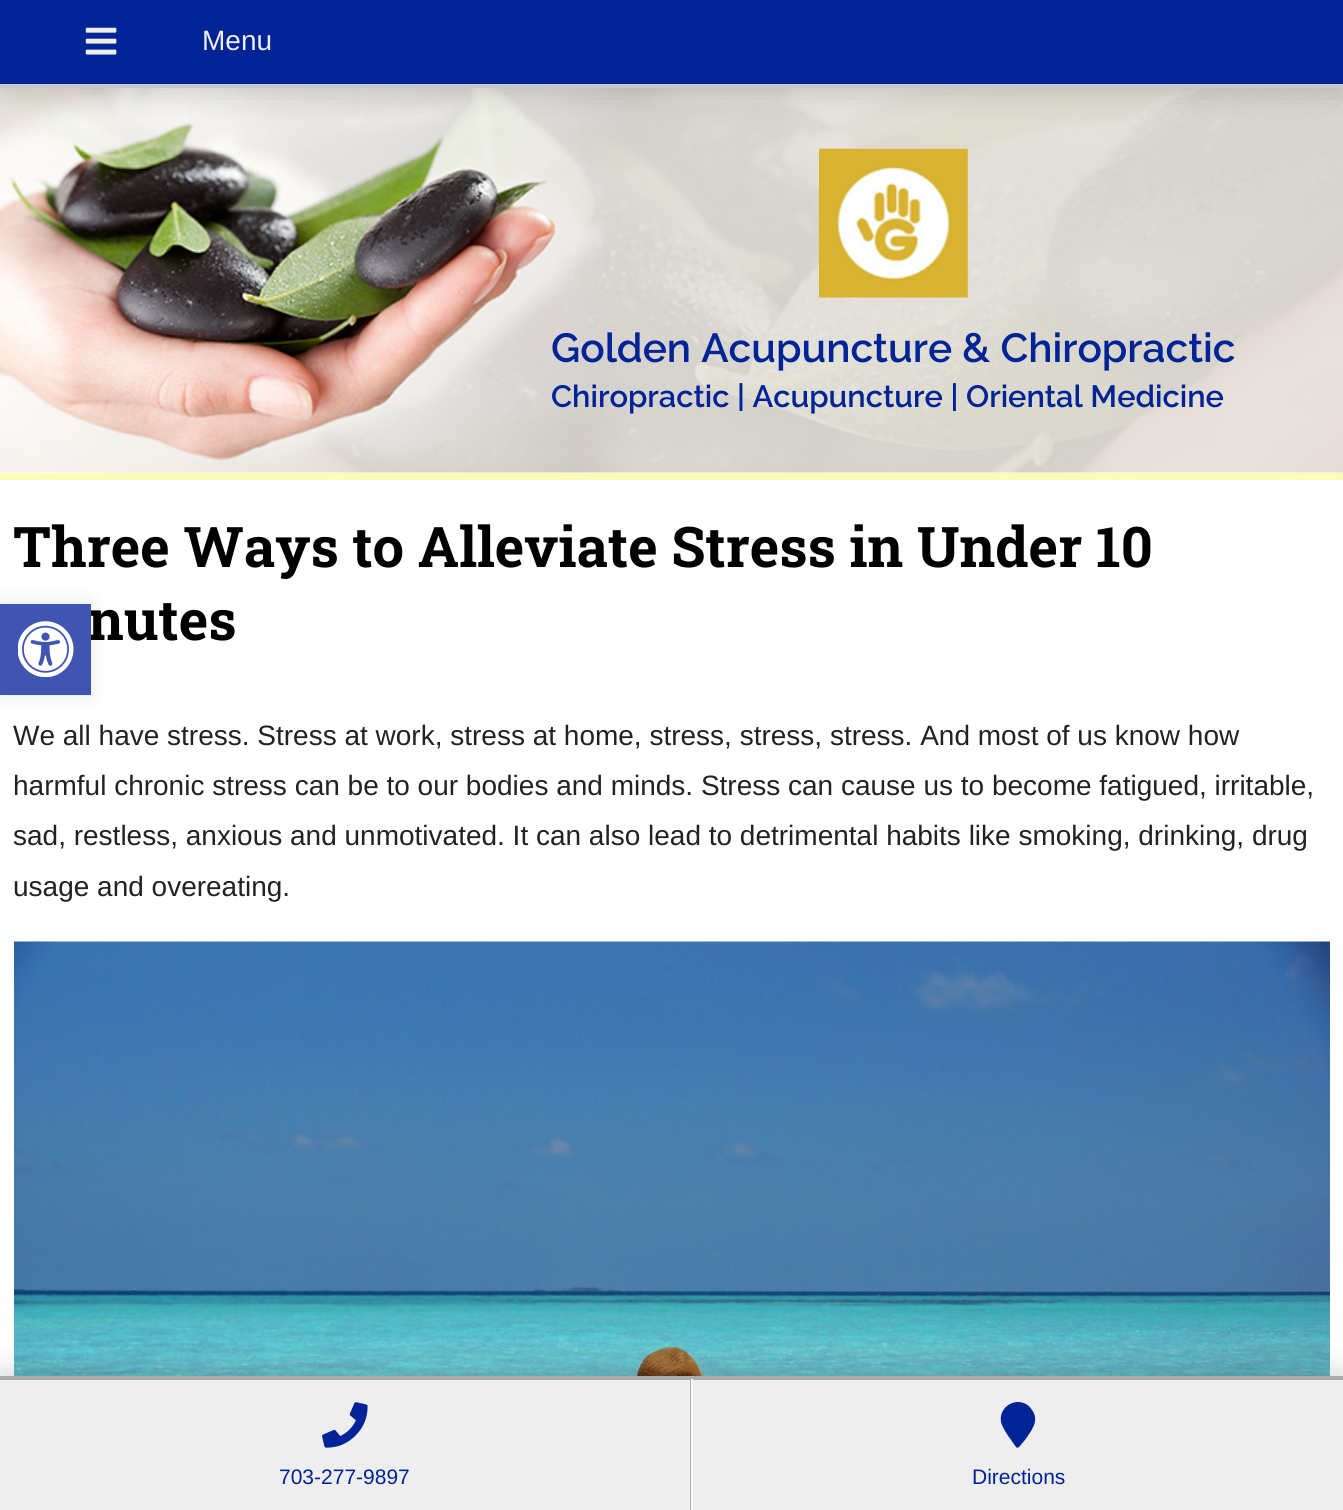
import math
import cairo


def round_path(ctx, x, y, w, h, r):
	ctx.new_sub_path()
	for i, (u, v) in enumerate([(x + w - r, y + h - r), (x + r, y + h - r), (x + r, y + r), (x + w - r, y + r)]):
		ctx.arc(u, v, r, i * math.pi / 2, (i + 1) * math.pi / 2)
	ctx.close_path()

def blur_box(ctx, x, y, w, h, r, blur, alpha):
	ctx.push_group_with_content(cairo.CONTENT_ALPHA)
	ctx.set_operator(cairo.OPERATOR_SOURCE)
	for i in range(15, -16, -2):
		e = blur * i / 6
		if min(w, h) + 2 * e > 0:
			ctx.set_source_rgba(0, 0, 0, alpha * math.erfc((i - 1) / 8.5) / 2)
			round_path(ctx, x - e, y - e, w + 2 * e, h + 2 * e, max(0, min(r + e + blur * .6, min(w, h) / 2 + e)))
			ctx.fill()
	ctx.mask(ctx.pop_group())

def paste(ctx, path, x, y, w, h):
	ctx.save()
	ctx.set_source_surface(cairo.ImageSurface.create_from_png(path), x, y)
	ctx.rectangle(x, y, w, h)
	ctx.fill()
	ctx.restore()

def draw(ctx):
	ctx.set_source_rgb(1, 1, 1)
	ctx.paint()
	paste(ctx, 'media/2.png', 0, 88, 1343, 385)
	ctx.set_source_rgb(0, 0, 0)
	blur_box(ctx, 0, 5, 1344, 88, 0, 14, 0.15)
	ctx.set_source_rgb(0, 0.137, 0.584)
	ctx.rectangle(0, 0, 1343, 84)
	ctx.fill()
	ctx.set_source_rgb(0.776, 0.776, 0.776)
	ctx.rectangle(0, 84, 1343, 4)
	ctx.fill()
	paste(ctx, 'media/1.png', 85, 27, 32, 28)
	ctx.select_font_face('Liberation Sans')
	ctx.set_font_size(28)
	ctx.set_source_rgb(0.933, 0.933, 0.933)
	ctx.move_to(202, 50)
	ctx.show_text('Menu')
	ctx.set_source_rgb(0.984, 0.988, 0.718)
	ctx.rectangle(0, 473, 1343, 7)
	ctx.fill()
	paste(ctx, 'media/3.png', 819, 148, 149, 150)
	ctx.select_font_face('Raleway SemiBold')
	ctx.set_font_size(40.6)
	ctx.set_source_rgb(0, 0.137, 0.584)
	ctx.move_to(551, 362)
	ctx.show_text('Golden Acupuncture & Chiropractic')
	ctx.set_font_size(30.8)
	ctx.move_to(551, 407)
	ctx.show_text('Chiropractic | Acupuncture | Oriental Medicine')
	ctx.select_font_face('Roboto Slab', cairo.FONT_SLANT_NORMAL, cairo.FONT_WEIGHT_BOLD)
	ctx.set_font_size(56)
	ctx.set_source_rgb(0, 0, 0)
	ctx.move_to(13, 567)
	ctx.show_text('Three Ways to Alleviate Stress in Under 10')
	ctx.move_to(88, 640)
	ctx.show_text('nutes')
	ctx.select_font_face('Liberation Sans')
	ctx.set_font_size(28)
	ctx.set_source_rgb(0.133, 0.133, 0.133)
	for x, y, s in [
		(13, 745, 'We all have stress. Stress at work, stress at home, stress, stress, stress. And most of us know how'),
		(13, 795, 'harmful chronic stress can be to our bodies and minds. Stress can cause us to become fatigued, irritable,'),
		(13, 845, 'sad, restless, anxious and unmotivated. It can also lead to detrimental habits like smoking, drinking, drug'),
		(13, 896, 'usage and overeating.'),
	]:
		ctx.move_to(x, y)
		ctx.show_text(s)
	paste(ctx, 'media/4.png', 14, 941, 1316, 435)
	ctx.set_source_rgb(0, 0, 0)
	blur_box(ctx, 0, 604, 91, 91, 0, 9, 0.1)
	ctx.set_source_rgb(0.251, 0.329, 0.698)
	ctx.rectangle(0, 604, 91, 91)
	ctx.fill()
	paste(ctx, 'media/5.png', 18, 621, 56, 56)
	ctx.set_source_rgb(0, 0, 0)
	blur_box(ctx, 0, 1370, 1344, 135, 0, 14, 0.15)
	ctx.set_source_rgb(0.933, 0.933, 0.933)
	ctx.rectangle(0, 1380, 1343, 130)
	ctx.fill()
	ctx.set_source_rgb(0.667, 0.667, 0.667)
	ctx.rectangle(0, 1376, 1343, 4)
	ctx.fill()
	ctx.set_source_rgba(0.667, 0.667, 0.667, 0.87)
	ctx.rectangle(690, 1379, 2, 131)
	ctx.fill()
	paste(ctx, 'media/6.png', 322, 1402, 46, 46)
	ctx.set_font_size(21)
	ctx.set_source_rgb(0, 0.137, 0.584)
	ctx.move_to(279, 1484)
	ctx.show_text('703-277-9897')
	ctx.set_source_rgba(1, 1, 1, 0.87)
	ctx.rectangle(691, 1379, 2, 131)
	ctx.fill()
	ctx.set_source_rgb(0, 0.137, 0.584)
	ctx.new_path()
	ctx.move_to(1016, 1447)
	ctx.curve_to(1012, 1441, 1003, 1430, 1001, 1422)
	ctx.curve_to(998, 1404, 1022, 1394, 1032, 1410)
	ctx.curve_to(1040, 1421, 1031, 1431, 1025, 1440)
	ctx.line_to(1019, 1447)
	ctx.curve_to(1018, 1448, 1017, 1448, 1016, 1447)
	ctx.close_path()
	ctx.fill()
	ctx.move_to(972, 1484)
	ctx.show_text('Directions')


surface = cairo.ImageSurface(cairo.FORMAT_RGB24, 1343, 1510)
ctx = cairo.Context(surface)
options = cairo.FontOptions()
options.set_hint_metrics(cairo.HINT_METRICS_OFF)
options.set_hint_style(cairo.HINT_STYLE_NONE)
ctx.set_font_options(options)
ctx.set_miter_limit(4)
draw(ctx)
surface.write_to_png('image.png')
